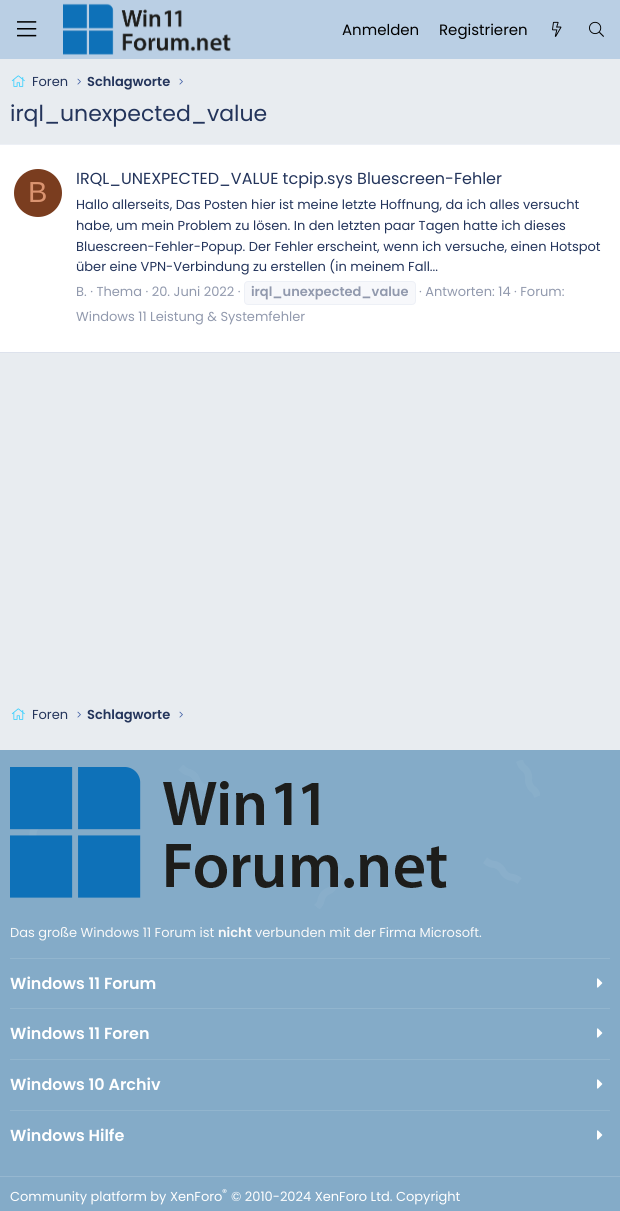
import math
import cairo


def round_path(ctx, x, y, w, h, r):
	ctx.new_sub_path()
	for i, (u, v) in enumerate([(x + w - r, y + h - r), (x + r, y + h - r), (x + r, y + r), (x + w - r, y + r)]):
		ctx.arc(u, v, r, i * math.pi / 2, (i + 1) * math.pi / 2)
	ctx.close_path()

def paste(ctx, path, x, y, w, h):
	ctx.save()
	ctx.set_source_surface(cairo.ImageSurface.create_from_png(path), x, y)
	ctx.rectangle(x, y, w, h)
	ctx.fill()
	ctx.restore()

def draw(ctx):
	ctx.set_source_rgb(0.91, 0.922, 0.941)
	ctx.paint()
	ctx.set_source_rgb(0.729, 0.812, 0.894)
	ctx.rectangle(0, 0, 620, 59)
	ctx.fill()
	paste(ctx, 'media/1.png', 17, 21, 20, 16)
	paste(ctx, 'media/2.png', 63, 3, 168, 52)
	ctx.select_font_face('Poppins')
	ctx.set_font_size(15)
	ctx.set_source_rgb(0, 0, 0)
	ctx.move_to(342, 35)
	ctx.show_text('Anmelden')
	ctx.move_to(439, 35)
	ctx.show_text('Registrieren')
	paste(ctx, 'media/3.png', 552, 21, 10, 16)
	paste(ctx, 'media/4.png', 589, 21, 15, 16)
	paste(ctx, 'media/5.png', 11, 75, 14, 12)
	ctx.set_font_size(13)
	ctx.set_source_rgb(0.137, 0.204, 0.357)
	ctx.move_to(32, 86)
	ctx.show_text('Foren')
	paste(ctx, 'media/6.png', 77, 78, 4, 7)
	ctx.select_font_face('Poppins SemiBold')
	ctx.move_to(87, 86)
	ctx.show_text('Schlagworte')
	paste(ctx, 'media/6.png', 179, 78, 4, 7)
	ctx.select_font_face('Poppins')
	ctx.set_font_size(22)
	ctx.move_to(10, 121)
	ctx.show_text('irql_unexpected_value')
	ctx.set_source_rgb(1, 1, 1)
	ctx.rectangle(0, 145, 620, 207)
	ctx.fill()
	ctx.set_source_rgb(0.929, 0.941, 0.961)
	ctx.rectangle(0, 144, 620, 1)
	ctx.fill()
	ctx.set_source_rgb(0.867, 0.886, 0.925)
	ctx.rectangle(0, 352, 620, 1)
	ctx.fill()
	ctx.set_source_rgb(0.478, 0.239, 0.122)
	ctx.arc(38, 193, 24, 0, 2 * math.pi)
	ctx.fill()
	ctx.select_font_face('Liberation Sans')
	ctx.set_font_size(29)
	ctx.set_source_rgb(0.859, 0.58, 0.439)
	ctx.move_to(28, 202)
	ctx.show_text('B')
	ctx.select_font_face('Poppins')
	ctx.set_font_size(16)
	ctx.set_source_rgb(0.137, 0.204, 0.357)
	ctx.move_to(76, 184)
	ctx.show_text('IRQL_UNEXPECTED_VALUE tcpip.sys Bluescreen-Fehler')
	ctx.set_font_size(13)
	for x, y, s in [
		(76, 209, 'Hallo allerseits, Das Posten hier ist meine letzte Hoffnung, da ich alles versucht'),
		(76, 230, 'habe, um mein Problem zu lösen. In den letzten paar Tagen hatte ich dieses'),
		(76, 251, 'Bluescreen-Fehler-Popup. Der Fehler erscheint, wenn ich versuche, einen Hotspot'),
		(76, 271, 'über eine VPN-Verbindung zu erstellen (in meinem Fall...'),
	]:
		ctx.move_to(x, y)
		ctx.show_text(s)
	ctx.set_source_rgb(0.569, 0.6, 0.678)
	ctx.move_to(76, 296)
	ctx.show_text('B. · Thema · 20. Juni 2022 ·')
	ctx.set_source_rgb(0.965, 0.969, 0.984)
	round_path(ctx, 244.5, 281.5, 171, 23, 3.5)
	ctx.fill_preserve()
	ctx.set_source_rgb(0.929, 0.941, 0.961)
	ctx.set_line_width(1)
	ctx.stroke()
	ctx.select_font_face('Poppins SemiBold')
	ctx.set_source_rgb(0.569, 0.6, 0.678)
	ctx.move_to(251, 296)
	ctx.show_text('irql_unexpected_value')
	ctx.select_font_face('Poppins')
	ctx.move_to(419, 296)
	ctx.show_text('· Antworten: 14 · Forum:')
	ctx.move_to(76, 321)
	ctx.show_text('Windows 11 Leistung & Systemfehler')
	paste(ctx, 'media/5.png', 11, 708, 14, 12)
	ctx.set_source_rgb(0.137, 0.204, 0.357)
	ctx.move_to(32, 719)
	ctx.show_text('Foren')
	paste(ctx, 'media/6.png', 77, 711, 4, 7)
	ctx.select_font_face('Poppins SemiBold')
	ctx.move_to(87, 719)
	ctx.show_text('Schlagworte')
	paste(ctx, 'media/6.png', 179, 711, 4, 7)
	ctx.set_source_rgb(0.518, 0.671, 0.784)
	ctx.rectangle(0, 750, 620, 426)
	ctx.fill()
	paste(ctx, 'media/7.png', 29, 760, 511, 149)
	ctx.set_source_rgb(0.573, 0.71, 0.808)
	ctx.rectangle(10, 958, 600, 1)
	ctx.fill()
	paste(ctx, 'media/8.png', 10, 767, 437, 131)
	ctx.select_font_face('Poppins')
	ctx.set_source_rgb(0.976, 0.976, 0.976)
	ctx.move_to(10, 937)
	ctx.show_text('Das große Windows 11 Forum ist')
	ctx.select_font_face('Poppins SemiBold')
	ctx.move_to(218, 937)
	ctx.show_text('nicht')
	ctx.select_font_face('Poppins')
	ctx.move_to(255, 937)
	ctx.show_text('verbunden mit der Firma Microsoft.')
	ctx.set_source_rgb(0.573, 0.71, 0.808)
	ctx.rectangle(10, 1008, 600, 1)
	ctx.fill()
	ctx.select_font_face('Poppins SemiBold')
	ctx.set_font_size(16)
	ctx.set_source_rgb(1, 1, 1)
	ctx.move_to(10, 989)
	ctx.show_text('Windows 11 Forum')
	paste(ctx, 'media/9.png', 597, 978, 6, 10)
	ctx.set_source_rgb(0.573, 0.71, 0.808)
	ctx.rectangle(10, 1059, 600, 1)
	ctx.fill()
	ctx.set_source_rgb(1, 1, 1)
	ctx.move_to(10, 1039)
	ctx.show_text('Windows 11 Foren')
	paste(ctx, 'media/9.png', 597, 1028, 6, 10)
	ctx.set_source_rgb(0.573, 0.71, 0.808)
	ctx.rectangle(10, 1110, 600, 1)
	ctx.fill()
	ctx.set_source_rgb(1, 1, 1)
	ctx.move_to(10, 1090)
	ctx.show_text('Windows 10 Archiv')
	paste(ctx, 'media/9.png', 597, 1079, 6, 10)
	ctx.move_to(10, 1141)
	ctx.show_text('Windows Hilfe')
	paste(ctx, 'media/9.png', 597, 1130, 6, 10)
	ctx.set_source_rgb(0.518, 0.671, 0.784)
	ctx.rectangle(0, 1177, 620, 34)
	ctx.fill()
	ctx.set_source_rgb(0.588, 0.718, 0.816)
	ctx.rectangle(0, 1176, 620, 1)
	ctx.fill()
	ctx.select_font_face('Poppins')
	ctx.set_font_size(13)
	ctx.set_source_rgb(1, 1, 1)
	ctx.move_to(10, 1201)
	ctx.show_text('Community platform by XenForo')
	ctx.set_font_size(10)
	ctx.move_to(222, 1196)
	ctx.show_text('®')
	ctx.set_font_size(13)
	ctx.move_to(231, 1201)
	ctx.show_text('© 2010-2024 XenForo Ltd. Copyright')


surface = cairo.ImageSurface(cairo.FORMAT_RGB24, 620, 1211)
ctx = cairo.Context(surface)
options = cairo.FontOptions()
options.set_hint_metrics(cairo.HINT_METRICS_OFF)
options.set_hint_style(cairo.HINT_STYLE_NONE)
ctx.set_font_options(options)
ctx.set_miter_limit(4)
draw(ctx)
surface.write_to_png('image.png')
